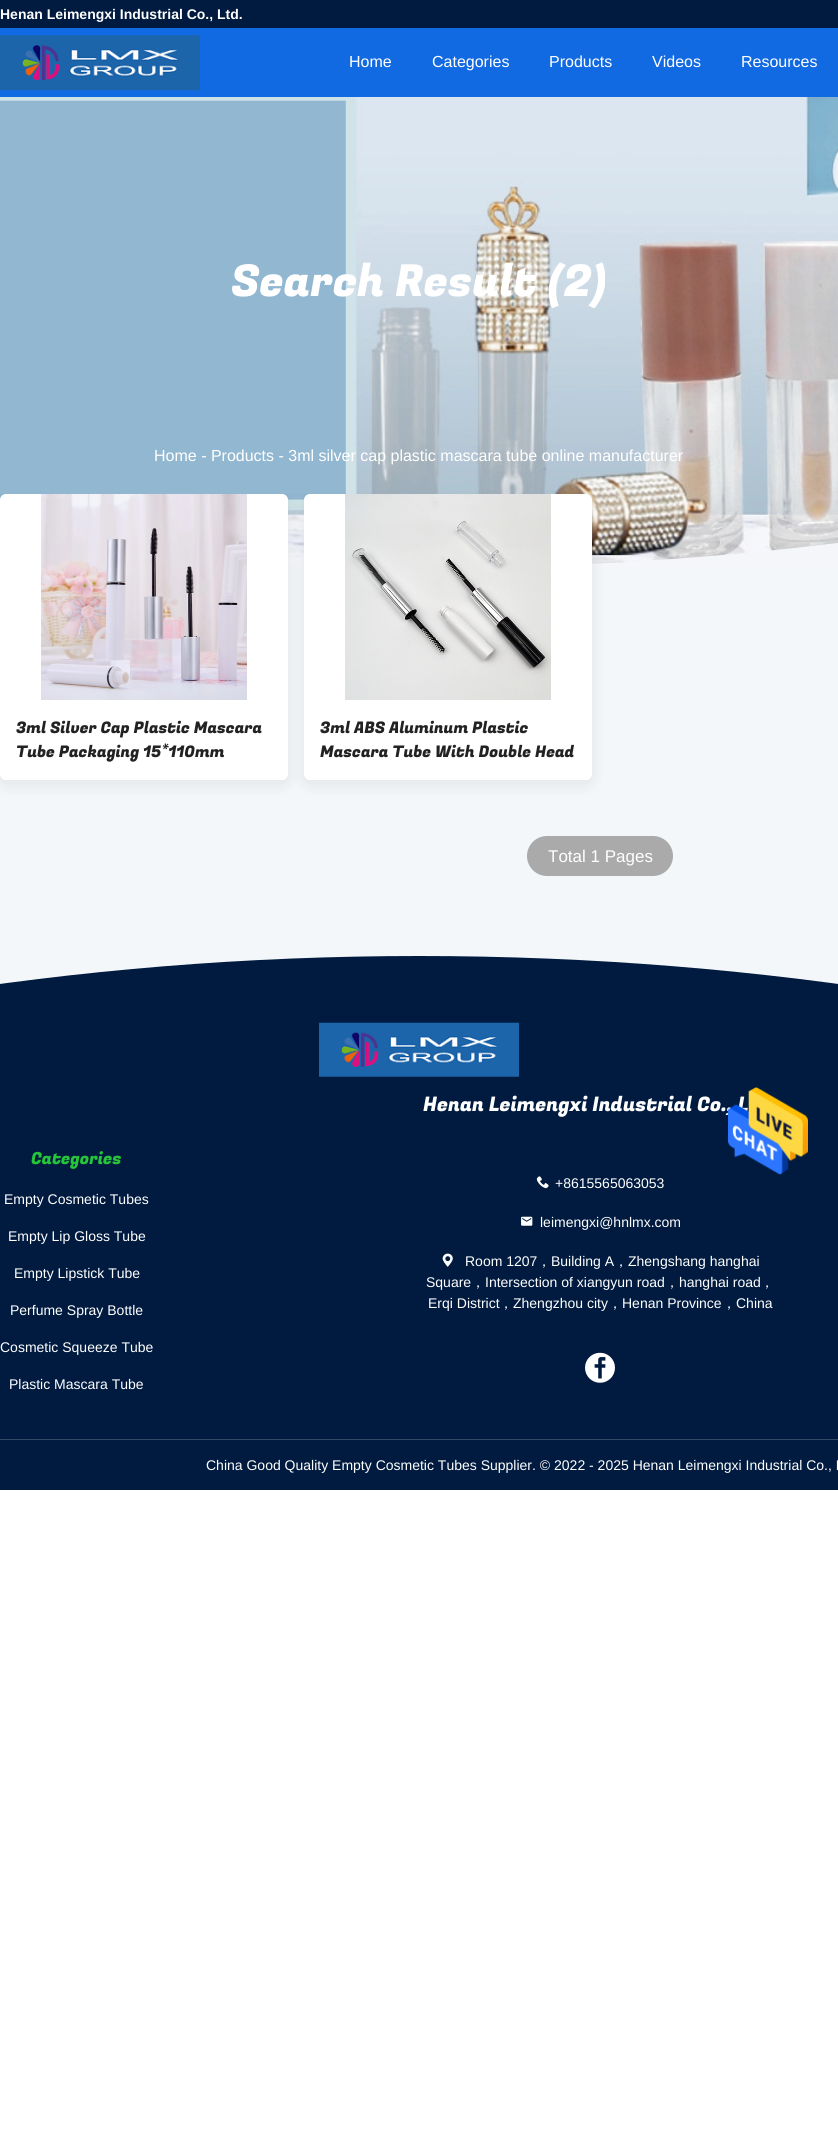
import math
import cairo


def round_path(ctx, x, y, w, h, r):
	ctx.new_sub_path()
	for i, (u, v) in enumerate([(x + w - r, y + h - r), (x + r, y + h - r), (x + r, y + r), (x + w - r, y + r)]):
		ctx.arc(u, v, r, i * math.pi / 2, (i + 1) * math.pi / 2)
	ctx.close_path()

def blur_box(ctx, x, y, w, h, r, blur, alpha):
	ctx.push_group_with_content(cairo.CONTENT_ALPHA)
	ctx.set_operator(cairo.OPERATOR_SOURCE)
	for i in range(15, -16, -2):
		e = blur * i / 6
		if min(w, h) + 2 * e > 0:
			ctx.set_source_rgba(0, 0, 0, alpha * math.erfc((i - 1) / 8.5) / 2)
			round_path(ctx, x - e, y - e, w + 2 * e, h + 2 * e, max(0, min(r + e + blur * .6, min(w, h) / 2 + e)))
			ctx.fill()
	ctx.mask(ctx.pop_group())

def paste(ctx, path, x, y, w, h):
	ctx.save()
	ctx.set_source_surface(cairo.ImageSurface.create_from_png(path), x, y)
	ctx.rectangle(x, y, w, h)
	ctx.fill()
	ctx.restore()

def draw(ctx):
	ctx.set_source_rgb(1, 1, 1)
	ctx.paint()
	ctx.set_source_rgb(0, 0.106, 0.247)
	ctx.rectangle(0, 0, 838, 28)
	ctx.fill()
	ctx.select_font_face('Liberation Sans', cairo.FONT_SLANT_NORMAL, cairo.FONT_WEIGHT_BOLD)
	ctx.set_font_size(14)
	ctx.set_source_rgb(1, 1, 1)
	ctx.move_to(0, 19)
	ctx.show_text('Henan Leimengxi Industrial Co., Ltd.')
	ctx.set_source_rgb(0.071, 0.416, 0.886)
	ctx.rectangle(0, 28, 838, 69)
	ctx.fill()
	paste(ctx, 'media/1.png', 0, 35, 200, 56)
	ctx.select_font_face('Liberation Sans')
	ctx.set_font_size(16)
	ctx.set_source_rgb(1, 1, 1)
	for x, y, s in [
		(349, 67, 'Home'),
		(432, 67, 'Categories'),
		(549, 67, 'Products'),
		(652, 67, 'Videos'),
		(741, 67, 'Resources'),
	]:
		ctx.move_to(x, y)
		ctx.show_text(s)
	paste(ctx, 'media/2.png', 0, 97, 838, 470)
	ctx.select_font_face('Fugaz One')
	ctx.set_font_size(44)
	ctx.move_to(231, 296)
	ctx.show_text('Search Result (2)')
	ctx.select_font_face('Liberation Sans')
	ctx.set_font_size(16)
	ctx.move_to(154, 461)
	ctx.show_text('Home - Products - 3ml silver cap plastic mascara tube online manufacturer')
	paste(ctx, 'media/3.png', 288, 543, 550, 25)
	ctx.set_source_rgb(0.957, 0.965, 0.976)
	ctx.rectangle(0, 568, 838, 416)
	ctx.fill()
	ctx.save()
	ctx.rectangle(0, 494, 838, 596)
	ctx.clip()
	ctx.set_source_rgb(0, 0, 0)
	blur_box(ctx, 0, 498, 288, 286, 6, 8, 0.08)
	ctx.restore()
	ctx.set_source_rgb(1, 1, 1)
	round_path(ctx, 0, 494, 288, 286, 6)
	ctx.fill()
	paste(ctx, 'media/4.png', 41, 494, 206, 206)
	ctx.select_font_face('Fugaz One')
	ctx.set_source_rgb(0.133, 0.133, 0.133)
	ctx.move_to(16, 733)
	ctx.show_text('3ml Silver Cap Plastic Mascara')
	ctx.move_to(16, 757)
	ctx.show_text('Tube Packaging 15*110mm')
	ctx.save()
	ctx.rectangle(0, 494, 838, 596)
	ctx.clip()
	ctx.set_source_rgb(0, 0, 0)
	blur_box(ctx, 304, 498, 288, 286, 6, 8, 0.08)
	ctx.restore()
	ctx.set_source_rgb(1, 1, 1)
	round_path(ctx, 304, 494, 288, 286, 6)
	ctx.fill()
	paste(ctx, 'media/5.png', 345, 494, 206, 206)
	ctx.set_source_rgb(0.133, 0.133, 0.133)
	ctx.move_to(320, 733)
	ctx.show_text('3ml ABS Aluminum Plastic')
	ctx.move_to(320, 757)
	ctx.show_text('Mascara Tube With Double Head')
	ctx.set_source_rgb(0.667, 0.667, 0.667)
	round_path(ctx, 527, 836, 146, 40, 20)
	ctx.fill()
	ctx.select_font_face('Liberation Sans')
	ctx.set_font_size(17)
	ctx.set_source_rgb(1, 1, 1)
	ctx.move_to(548, 862)
	ctx.show_text('Total 1 Pages')
	ctx.save()
	ctx.rectangle(0, 956, 838, 534)
	ctx.clip()
	ctx.set_source_rgb(0, 0.106, 0.247)
	ctx.new_path()
	ctx.move_to(419, 956)
	ctx.curve_to(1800, 956, 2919, 1851, 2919, 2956)
	ctx.line_to(-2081, 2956)
	ctx.curve_to(-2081, 1851, -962, 956, 419, 956)
	ctx.close_path()
	ctx.fill()
	ctx.restore()
	ctx.select_font_face('Fugaz One')
	ctx.set_font_size(20)
	ctx.move_to(423, 1111)
	ctx.show_text('Henan Leimengxi Industrial Co., L')
	paste(ctx, 'media/6.png', 728, 1087, 80, 88)
	paste(ctx, 'media/7.png', 319, 1022, 201, 55)
	ctx.set_font_size(16.75)
	ctx.set_source_rgb(0.149, 0.769, 0.227)
	ctx.move_to(31, 1164)
	ctx.show_text('Categories')
	ctx.select_font_face('Liberation Sans')
	ctx.set_font_size(14)
	ctx.set_source_rgb(1, 1, 1)
	for x, y, s in [
		(4, 1204, 'Empty Cosmetic Tubes'),
		(8, 1241, 'Empty Lip Gloss Tube'),
		(14, 1278, 'Empty Lipstick Tube'),
		(10, 1315, 'Perfume Spray Bottle'),
		(0, 1352, 'Cosmetic Squeeze Tube'),
		(9, 1389, 'Plastic Mascara Tube'),
	]:
		ctx.move_to(x, y)
		ctx.show_text(s)
	paste(ctx, 'media/8.png', 536, 1176, 13, 13)
	ctx.move_to(555, 1188)
	ctx.show_text('+8615565063053')
	paste(ctx, 'media/9.png', 521, 1216, 12, 10)
	ctx.move_to(540, 1227)
	ctx.show_text('leimengxi@hnlmx.com')
	paste(ctx, 'media/10.png', 442, 1253, 11, 14)
	ctx.move_to(465, 1266)
	ctx.show_text('Room 1207')
	ctx.select_font_face('WenQuanYi Zen Hei Medium')
	ctx.move_to(537, 1266)
	ctx.show_text('，')
	ctx.select_font_face('Liberation Sans')
	ctx.move_to(551, 1266)
	ctx.show_text('Building A')
	ctx.select_font_face('WenQuanYi Zen Hei Medium')
	ctx.move_to(614, 1266)
	ctx.show_text('，')
	ctx.select_font_face('Liberation Sans')
	ctx.move_to(628, 1266)
	ctx.show_text('Zhengshang hanghai')
	ctx.move_to(426, 1287)
	ctx.show_text('Square')
	ctx.select_font_face('WenQuanYi Zen Hei Medium')
	ctx.move_to(471, 1287)
	ctx.show_text('，')
	ctx.select_font_face('Liberation Sans')
	ctx.move_to(485, 1287)
	ctx.show_text('Intersection of xiangyun road')
	ctx.select_font_face('WenQuanYi Zen Hei Medium')
	ctx.move_to(665, 1287)
	ctx.show_text('，')
	ctx.select_font_face('Liberation Sans')
	ctx.move_to(679, 1287)
	ctx.show_text('hanghai road')
	ctx.select_font_face('WenQuanYi Zen Hei Medium')
	ctx.move_to(760, 1287)
	ctx.show_text('，')
	ctx.select_font_face('Liberation Sans')
	ctx.move_to(428, 1308)
	ctx.show_text('Erqi District')
	ctx.select_font_face('WenQuanYi Zen Hei Medium')
	ctx.move_to(499, 1308)
	ctx.show_text('，')
	ctx.select_font_face('Liberation Sans')
	ctx.move_to(513, 1308)
	ctx.show_text('Zhengzhou city')
	ctx.select_font_face('WenQuanYi Zen Hei Medium')
	ctx.move_to(608, 1308)
	ctx.show_text('，')
	ctx.select_font_face('Liberation Sans')
	ctx.move_to(622, 1308)
	ctx.show_text('Henan Province')
	ctx.select_font_face('WenQuanYi Zen Hei Medium')
	ctx.move_to(722, 1308)
	ctx.show_text('，')
	ctx.select_font_face('Liberation Sans')
	ctx.move_to(736, 1308)
	ctx.show_text('China')
	paste(ctx, 'media/11.png', 585, 1352, 30, 31)
	ctx.set_source_rgb(0.2, 0.286, 0.396)
	ctx.rectangle(0, 1439, 838, 1)
	ctx.fill()
	ctx.set_source_rgb(1, 1, 1)
	ctx.move_to(206, 1470)
	ctx.show_text('China Good Quality Empty Cosmetic Tubes Supplier. © 2022 - 2025 Henan Leimengxi Industrial Co., L')


surface = cairo.ImageSurface(cairo.FORMAT_RGB24, 838, 2138)
ctx = cairo.Context(surface)
options = cairo.FontOptions()
options.set_hint_metrics(cairo.HINT_METRICS_OFF)
options.set_hint_style(cairo.HINT_STYLE_NONE)
ctx.set_font_options(options)
ctx.set_miter_limit(4)
draw(ctx)
surface.write_to_png('image.png')
